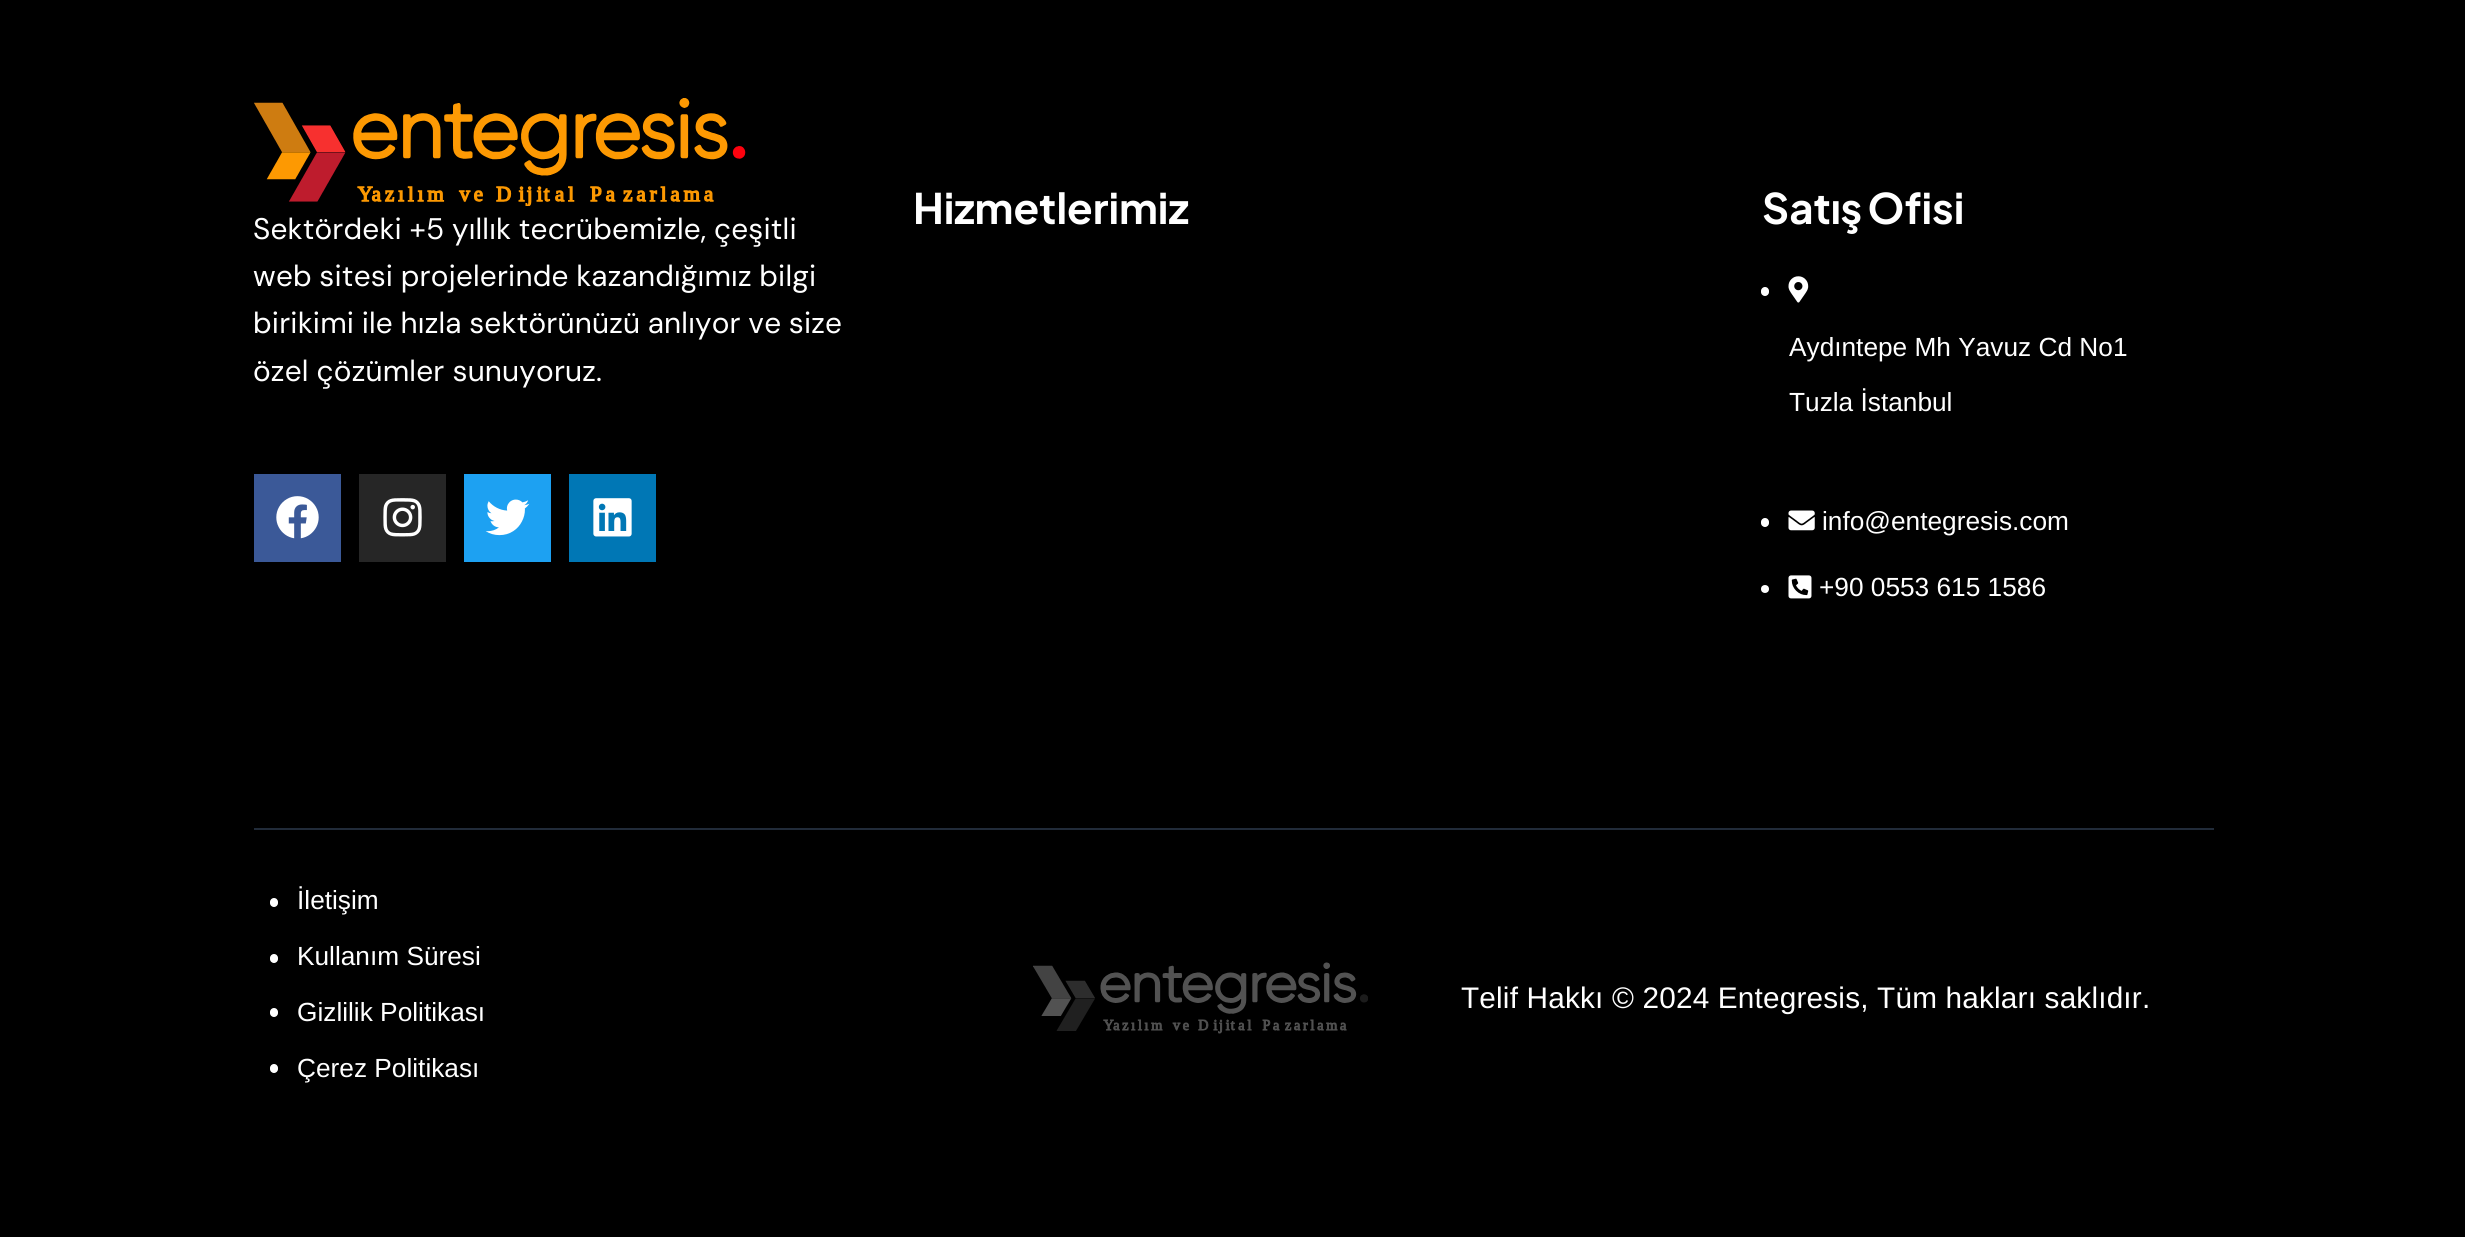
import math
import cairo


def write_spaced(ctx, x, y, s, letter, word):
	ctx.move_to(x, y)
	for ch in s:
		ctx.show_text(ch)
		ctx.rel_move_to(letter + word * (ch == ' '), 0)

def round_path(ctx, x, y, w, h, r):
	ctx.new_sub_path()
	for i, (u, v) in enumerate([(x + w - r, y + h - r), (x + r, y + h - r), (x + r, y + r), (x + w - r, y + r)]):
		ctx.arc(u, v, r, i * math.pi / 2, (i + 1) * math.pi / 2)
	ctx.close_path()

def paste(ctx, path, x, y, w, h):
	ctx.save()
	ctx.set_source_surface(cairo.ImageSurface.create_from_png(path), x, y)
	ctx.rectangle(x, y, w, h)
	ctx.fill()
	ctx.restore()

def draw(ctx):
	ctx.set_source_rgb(0, 0, 0)
	ctx.paint()
	ctx.set_source_rgb(0.129, 0.169, 0.224)
	ctx.rectangle(254, 828, 1960, 2)
	ctx.fill()
	paste(ctx, 'media/1.png', 254, 98, 492, 108)
	ctx.select_font_face('DM Sans')
	ctx.set_font_size(29.75)
	ctx.set_source_rgb(1, 1, 1)
	for x, y, s in [
		(253, 239, 'Sektördeki +5 yıllık tecrübemizle, çeşitli'),
		(253, 286, 'web sitesi projelerinde kazandığımız bilgi'),
		(253, 333, 'birikimi ile hızla sektörünüzü anlıyor ve size'),
	]:
		write_spaced(ctx, x, y, s, 0.18, -0.5)
	write_spaced(ctx, 253, 381, 'özel çözümler sunuyoruz.', 0.18, 0)
	ctx.set_source_rgb(0.231, 0.349, 0.596)
	ctx.rectangle(254, 474, 87, 88)
	ctx.fill()
	paste(ctx, 'media/2.png', 276, 496, 43, 43)
	ctx.set_source_rgb(0.149, 0.149, 0.149)
	ctx.rectangle(359, 474, 87, 88)
	ctx.fill()
	paste(ctx, 'media/3.png', 383, 498, 39, 39)
	ctx.set_source_rgb(0.114, 0.631, 0.949)
	ctx.rectangle(464, 474, 87, 88)
	ctx.fill()
	paste(ctx, 'media/4.png', 485, 499, 45, 37)
	ctx.set_source_rgb(0, 0.467, 0.71)
	ctx.rectangle(569, 474, 87, 88)
	ctx.fill()
	paste(ctx, 'media/5.png', 593, 498, 39, 39)
	ctx.select_font_face('Plus Jakarta Sans', cairo.FONT_SLANT_NORMAL, cairo.FONT_WEIGHT_BOLD)
	ctx.set_font_size(42)
	ctx.set_source_rgb(1, 1, 1)
	ctx.move_to(913, 224)
	ctx.show_text('Hizmetlerimiz')
	write_spaced(ctx, 1762, 224, 'Satış Ofisi', 0, -2)
	round_path(ctx, 1761, 287, 8, 9, 4)
	ctx.fill()
	paste(ctx, 'media/6.png', 1788, 276, 21, 27)
	ctx.select_font_face('Liberation Sans')
	ctx.set_font_size(26.25)
	ctx.move_to(1789, 356)
	ctx.show_text('Aydıntepe Mh Yavuz Cd No1')
	ctx.move_to(1789, 411)
	ctx.show_text('Tuzla İstanbul')
	round_path(ctx, 1761, 518, 8, 9, 4)
	ctx.fill()
	paste(ctx, 'media/7.png', 1788, 510, 27, 21)
	ctx.move_to(1822, 530)
	ctx.show_text('info@entegresis.com')
	ctx.new_path()
	ctx.arc(1765, 589, 4, 0, 2 * math.pi)
	ctx.fill()
	paste(ctx, 'media/8.png', 1788, 575, 24, 24)
	ctx.move_to(1819, 596)
	ctx.show_text('+90 0553 615 1586')
	round_path(ctx, 270, 898, 8, 9, 4)
	ctx.fill()
	ctx.move_to(297, 909)
	ctx.show_text('İletişim')
	round_path(ctx, 270, 954, 8, 9, 4)
	ctx.fill()
	ctx.move_to(297, 965)
	ctx.show_text('Kullanım Süresi')
	round_path(ctx, 270, 1008, 8, 9, 4)
	ctx.fill()
	ctx.move_to(297, 1021)
	ctx.show_text('Gizlilik Politikası')
	round_path(ctx, 270, 1064, 8, 9, 4)
	ctx.fill()
	ctx.move_to(297, 1077)
	ctx.show_text('Çerez Politikası')
	paste(ctx, 'media/9.png', 1033, 962, 335, 72)
	ctx.set_font_size(29.75)
	write_spaced(ctx, 1461, 1008, 'Telif Hakkı © 2024 Entegresis, Tüm hakları saklıdır.', 0.18, 0)


surface = cairo.ImageSurface(cairo.FORMAT_RGB24, 2465, 1237)
ctx = cairo.Context(surface)
options = cairo.FontOptions()
options.set_hint_metrics(cairo.HINT_METRICS_OFF)
options.set_hint_style(cairo.HINT_STYLE_NONE)
ctx.set_font_options(options)
ctx.set_miter_limit(4)
draw(ctx)
surface.write_to_png('image.png')
